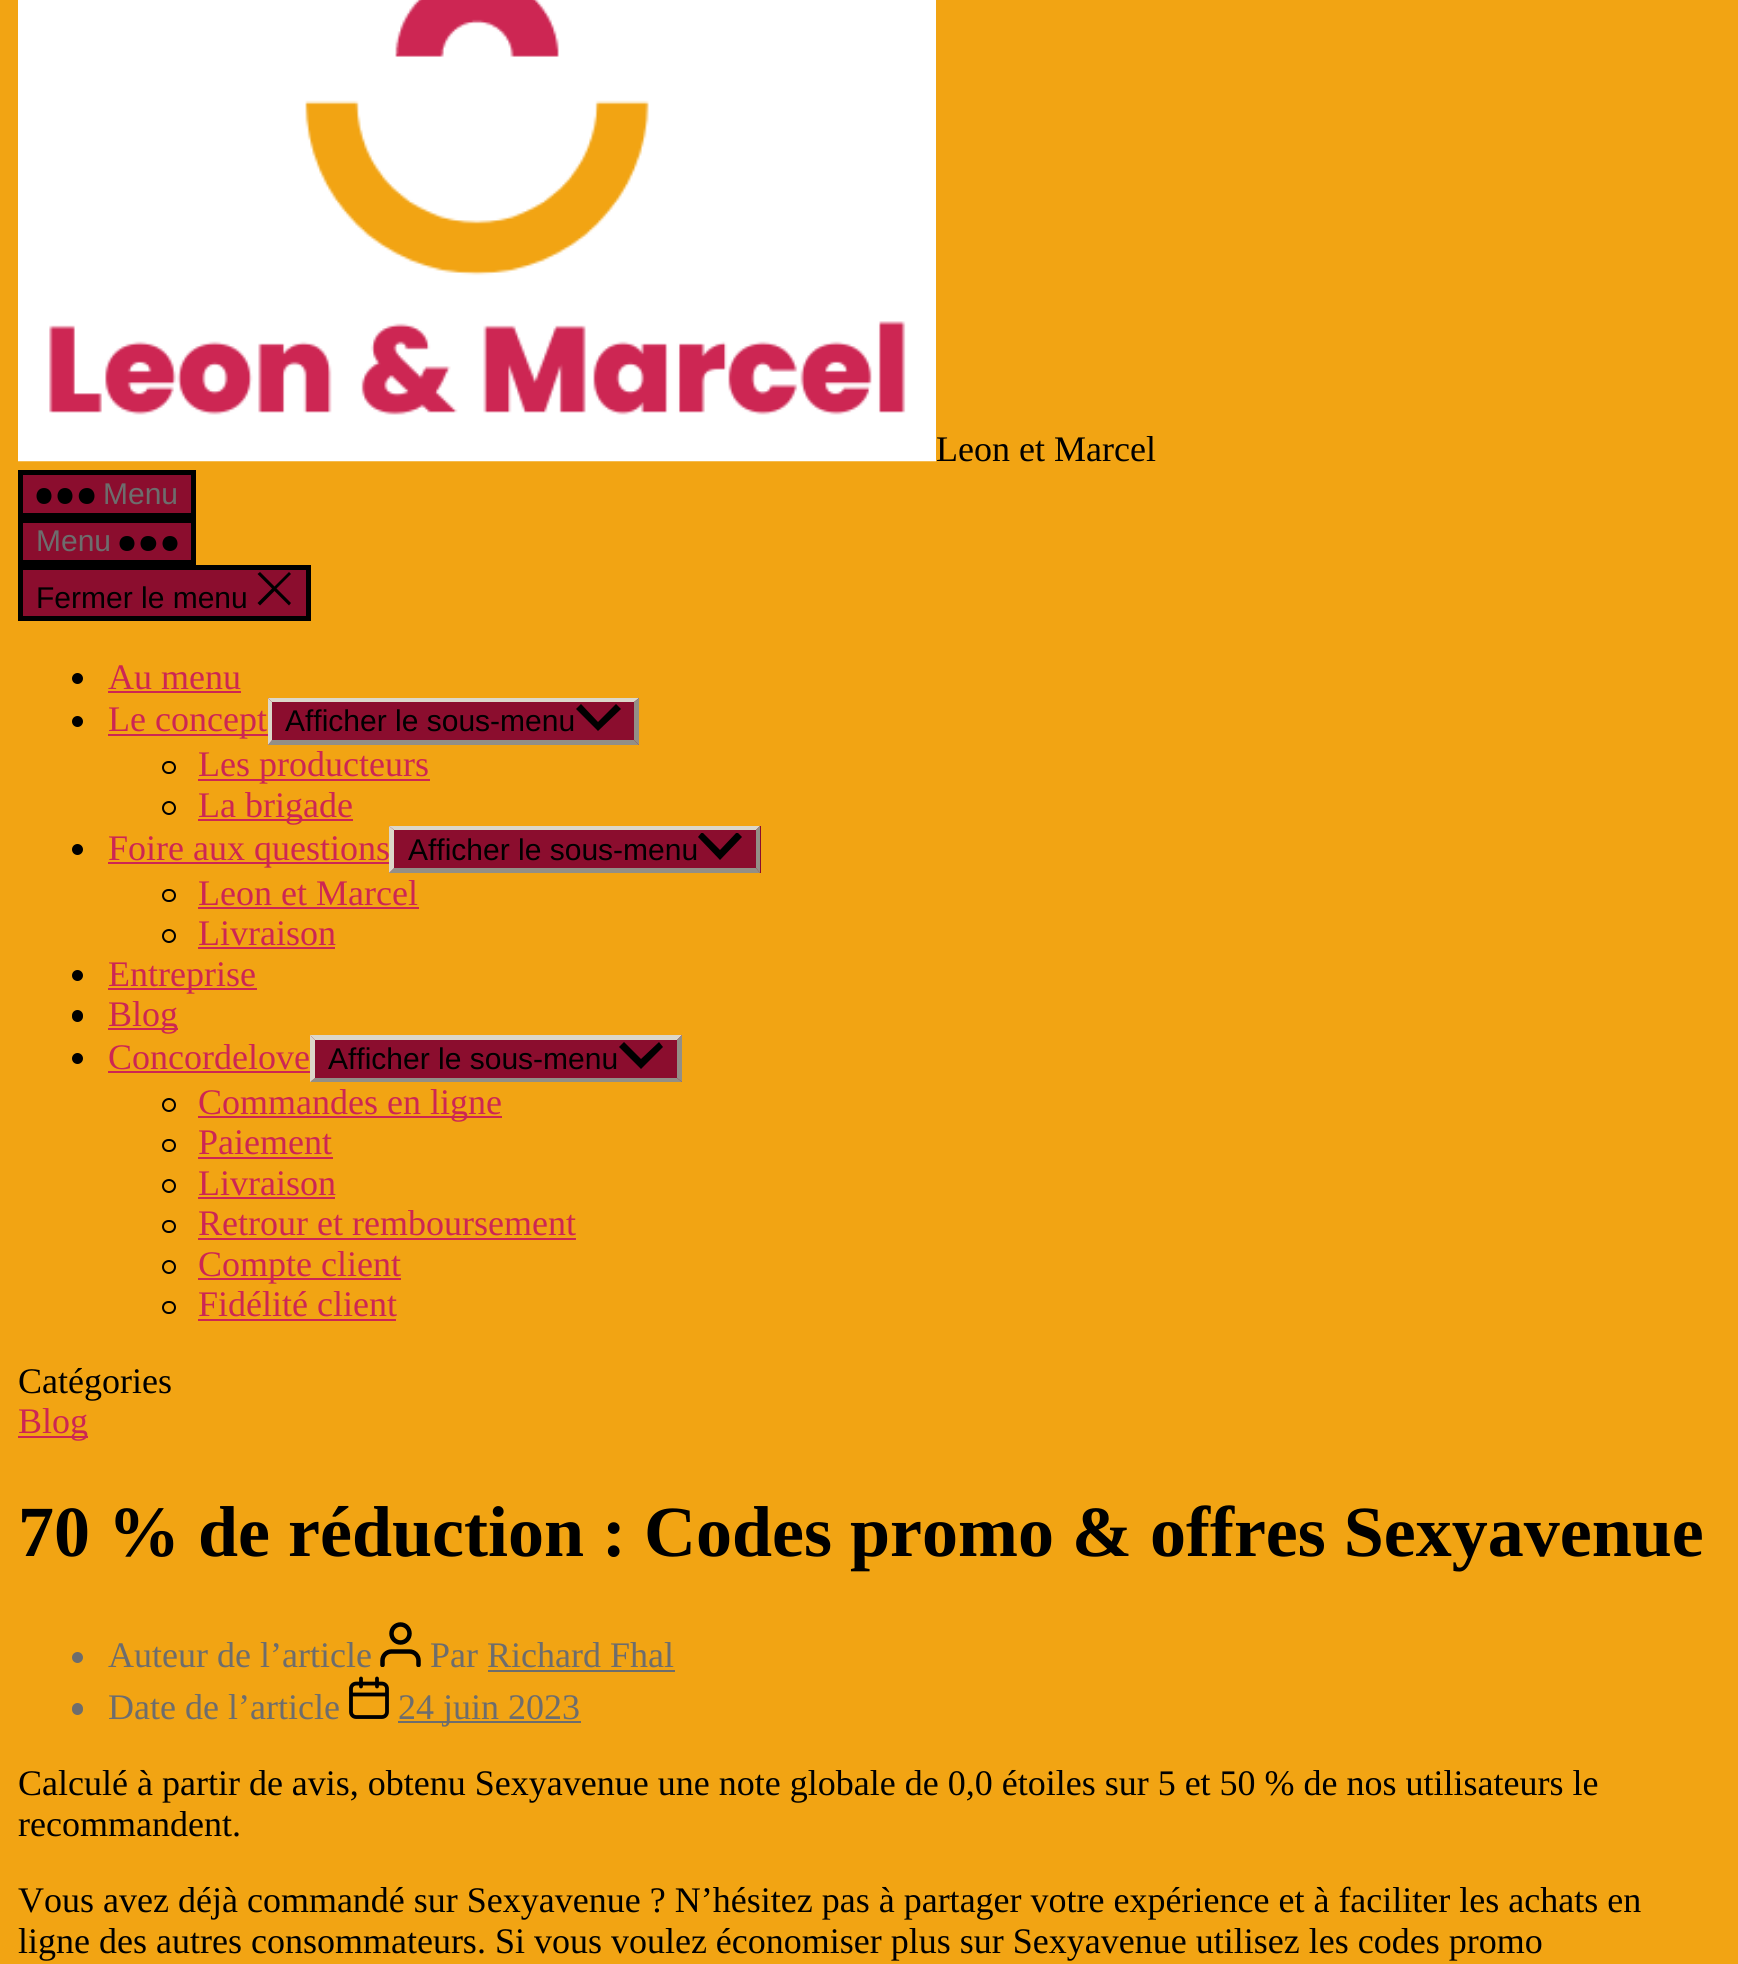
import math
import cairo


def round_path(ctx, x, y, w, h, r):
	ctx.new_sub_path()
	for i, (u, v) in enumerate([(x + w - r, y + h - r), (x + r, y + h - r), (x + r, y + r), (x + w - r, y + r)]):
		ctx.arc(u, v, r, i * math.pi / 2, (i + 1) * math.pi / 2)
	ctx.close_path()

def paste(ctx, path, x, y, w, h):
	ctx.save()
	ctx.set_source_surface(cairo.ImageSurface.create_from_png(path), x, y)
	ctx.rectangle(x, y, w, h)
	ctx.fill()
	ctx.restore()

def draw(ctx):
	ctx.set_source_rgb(0.949, 0.643, 0.075)
	ctx.paint()
	paste(ctx, 'media/1.png', 18, 0, 918, 462)
	ctx.select_font_face('Liberation Serif')
	ctx.set_font_size(36)
	ctx.set_source_rgb(0, 0, 0)
	ctx.move_to(936, 461)
	ctx.show_text('Leon et Marcel')
	ctx.set_source_rgb(0.545, 0.051, 0.18)
	ctx.rectangle(20.5, 472.5, 173, 43)
	ctx.fill_preserve()
	ctx.set_source_rgb(0, 0, 0)
	ctx.set_line_width(5)
	ctx.stroke()
	ctx.select_font_face('Liberation Sans')
	ctx.set_font_size(30)
	ctx.set_source_rgb(0.427, 0.427, 0.427)
	ctx.move_to(103, 504)
	ctx.show_text('Menu')
	ctx.set_source_rgb(0, 0, 0)
	ctx.set_fill_rule(cairo.FILL_RULE_EVEN_ODD)
	ctx.new_path()
	ctx.move_to(44, 504)
	ctx.curve_to(34, 504, 34, 488, 44, 488)
	ctx.curve_to(54, 488, 54, 504, 44, 504)
	ctx.close_path()
	ctx.move_to(65, 504)
	ctx.curve_to(55, 504, 55, 488, 65, 488)
	ctx.curve_to(75, 488, 75, 504, 65, 504)
	ctx.close_path()
	ctx.move_to(87, 504)
	ctx.curve_to(76, 504, 76, 488, 87, 488)
	ctx.curve_to(97, 488, 97, 504, 87, 504)
	ctx.close_path()
	ctx.fill()
	ctx.set_source_rgb(0.545, 0.051, 0.18)
	ctx.rectangle(20.5, 520.5, 173, 42)
	ctx.fill_preserve()
	ctx.set_source_rgb(0, 0, 0)
	ctx.stroke()
	ctx.set_source_rgb(0.427, 0.427, 0.427)
	ctx.move_to(36, 551)
	ctx.show_text('Menu')
	ctx.set_source_rgb(0, 0, 0)
	ctx.new_path()
	ctx.move_to(127, 551)
	ctx.curve_to(117, 551, 117, 536, 127, 536)
	ctx.curve_to(137, 536, 137, 551, 127, 551)
	ctx.close_path()
	ctx.move_to(148, 551)
	ctx.curve_to(138, 551, 138, 536, 148, 536)
	ctx.curve_to(159, 536, 159, 551, 148, 551)
	ctx.close_path()
	ctx.move_to(170, 551)
	ctx.curve_to(160, 551, 160, 536, 170, 536)
	ctx.curve_to(180, 536, 180, 551, 170, 551)
	ctx.close_path()
	ctx.fill()
	ctx.set_source_rgb(0.545, 0.051, 0.18)
	ctx.rectangle(20.5, 567.5, 288, 51)
	ctx.fill_preserve()
	ctx.set_source_rgb(0, 0, 0)
	ctx.stroke()
	ctx.move_to(36, 608)
	ctx.show_text('Fermer le menu')
	ctx.new_path()
	ctx.move_to(272, 588.5)
	ctx.line_to(257.5, 574)
	ctx.line_to(260, 572)
	ctx.line_to(274.5, 586.5)
	ctx.line_to(289, 572)
	ctx.line_to(291, 574)
	ctx.line_to(276.5, 588.5)
	ctx.line_to(291, 603)
	ctx.line_to(289, 605.5)
	ctx.line_to(274.5, 591)
	ctx.line_to(260, 605.5)
	ctx.line_to(257.5, 603)
	ctx.close_path()
	ctx.fill()
	ctx.arc(77.5, 678.5, 5.5, 0, 2 * math.pi)
	ctx.fill()
	ctx.select_font_face('Liberation Serif')
	ctx.set_font_size(36)
	ctx.set_source_rgb(0.804, 0.149, 0.325)
	ctx.move_to(108, 689)
	ctx.show_text('Au menu')
	ctx.rectangle(108, 691, 133, 2)
	ctx.fill()
	ctx.set_source_rgb(0, 0, 0)
	ctx.arc(77.5, 721.5, 5.5, 0, 2 * math.pi)
	ctx.fill()
	ctx.set_source_rgb(0.804, 0.149, 0.325)
	ctx.rectangle(108, 734, 160, 2)
	ctx.fill()
	ctx.move_to(108, 731)
	ctx.show_text('Le concept')
	ctx.set_source_rgb(0.545, 0.051, 0.18)
	ctx.rectangle(268, 698, 371, 47)
	ctx.fill()
	ctx.set_source_rgb(0.863, 0.843, 0.792)
	ctx.set_fill_rule(cairo.FILL_RULE_WINDING)
	ctx.new_path()
	ctx.move_to(268, 698)
	ctx.line_to(639, 698)
	ctx.line_to(634, 702)
	ctx.line_to(272, 702)
	ctx.close_path()
	ctx.fill()
	ctx.set_source_rgb(0.576, 0.561, 0.529)
	ctx.new_path()
	ctx.move_to(639, 698)
	ctx.line_to(639, 745)
	ctx.line_to(634, 740)
	ctx.line_to(634, 702)
	ctx.close_path()
	ctx.fill()
	ctx.new_path()
	ctx.move_to(639, 745)
	ctx.line_to(268, 745)
	ctx.line_to(272, 740)
	ctx.line_to(634, 740)
	ctx.close_path()
	ctx.fill()
	ctx.set_source_rgb(0.863, 0.843, 0.792)
	ctx.new_path()
	ctx.move_to(268, 745)
	ctx.line_to(268, 698)
	ctx.line_to(272, 702)
	ctx.line_to(272, 740)
	ctx.close_path()
	ctx.fill()
	ctx.select_font_face('Liberation Sans')
	ctx.set_font_size(30)
	ctx.set_source_rgb(0, 0, 0)
	ctx.move_to(285, 731)
	ctx.show_text('Afficher le sous-menu')
	ctx.set_fill_rule(cairo.FILL_RULE_EVEN_ODD)
	ctx.new_path()
	ctx.move_to(598, 722)
	ctx.line_to(616, 704)
	ctx.line_to(621, 709)
	ctx.line_to(598, 731)
	ctx.line_to(576, 709)
	ctx.line_to(581, 704)
	ctx.close_path()
	ctx.fill()
	round_path(ctx, 163, 762, 12, 11, 5.5)
	ctx.set_line_width(2)
	ctx.stroke()
	ctx.set_source_rgb(0.804, 0.149, 0.325)
	ctx.rectangle(198, 779, 232, 2)
	ctx.fill()
	ctx.select_font_face('Liberation Serif')
	ctx.set_font_size(36)
	ctx.move_to(198, 776)
	ctx.show_text('Les producteurs')
	ctx.new_path()
	ctx.arc(169, 808, 6, 0, 2 * math.pi)
	ctx.set_source_rgb(0, 0, 0)
	ctx.stroke()
	ctx.set_source_rgb(0.804, 0.149, 0.325)
	ctx.rectangle(198, 819, 155, 2)
	ctx.fill()
	ctx.move_to(198, 817)
	ctx.show_text('La brigade')
	ctx.set_source_rgb(0, 0, 0)
	ctx.new_path()
	ctx.arc(77.5, 849.5, 5.5, 0, 2 * math.pi)
	ctx.fill()
	ctx.set_source_rgb(0.804, 0.149, 0.325)
	ctx.rectangle(108, 862, 281, 2)
	ctx.fill()
	ctx.move_to(108, 860)
	ctx.show_text('Foire aux questions')
	ctx.set_source_rgb(0.545, 0.051, 0.18)
	ctx.rectangle(389, 826, 372, 47)
	ctx.fill()
	ctx.set_source_rgb(0.863, 0.843, 0.792)
	ctx.set_fill_rule(cairo.FILL_RULE_WINDING)
	ctx.new_path()
	ctx.move_to(389, 826)
	ctx.line_to(760, 826)
	ctx.line_to(756, 830)
	ctx.line_to(394, 830)
	ctx.close_path()
	ctx.fill()
	ctx.set_source_rgb(0.576, 0.561, 0.529)
	ctx.new_path()
	ctx.move_to(760, 826)
	ctx.line_to(760, 873)
	ctx.line_to(756, 868)
	ctx.line_to(756, 830)
	ctx.close_path()
	ctx.fill()
	ctx.new_path()
	ctx.move_to(760, 873)
	ctx.line_to(389, 873)
	ctx.line_to(394, 868)
	ctx.line_to(756, 868)
	ctx.close_path()
	ctx.fill()
	ctx.set_source_rgb(0.863, 0.843, 0.792)
	ctx.new_path()
	ctx.move_to(389, 873)
	ctx.line_to(389, 826)
	ctx.line_to(394, 830)
	ctx.line_to(394, 868)
	ctx.close_path()
	ctx.fill()
	ctx.select_font_face('Liberation Sans')
	ctx.set_font_size(30)
	ctx.set_source_rgb(0, 0, 0)
	ctx.move_to(408, 860)
	ctx.show_text('Afficher le sous-menu')
	ctx.save()
	ctx.rectangle(698, 833, 45, 27)
	ctx.clip()
	ctx.set_fill_rule(cairo.FILL_RULE_EVEN_ODD)
	ctx.new_path()
	ctx.move_to(720, 850)
	ctx.line_to(737, 832)
	ctx.line_to(742, 837)
	ctx.line_to(720, 860)
	ctx.line_to(698, 837)
	ctx.line_to(702, 832)
	ctx.close_path()
	ctx.fill()
	ctx.restore()
	round_path(ctx, 163, 890, 12, 11, 5.5)
	ctx.stroke()
	ctx.select_font_face('Liberation Serif')
	ctx.set_font_size(36)
	ctx.set_source_rgb(0.804, 0.149, 0.325)
	ctx.move_to(198, 905)
	ctx.show_text('Leon et Marcel')
	ctx.rectangle(198, 907, 221, 2)
	ctx.fill()
	ctx.arc(169, 936, 6, 0, 2 * math.pi)
	ctx.set_source_rgb(0, 0, 0)
	ctx.stroke()
	ctx.set_source_rgb(0.804, 0.149, 0.325)
	ctx.move_to(198, 945)
	ctx.show_text('Livraison')
	ctx.rectangle(198, 947, 137, 2)
	ctx.fill()
	ctx.set_source_rgb(0, 0, 0)
	ctx.arc(77.5, 975.5, 5.5, 0, 2 * math.pi)
	ctx.fill()
	ctx.set_source_rgb(0.804, 0.149, 0.325)
	ctx.rectangle(108, 988, 149, 2)
	ctx.fill()
	ctx.move_to(108, 986)
	ctx.show_text('Entreprise')
	ctx.set_source_rgb(0, 0, 0)
	round_path(ctx, 72, 1010, 11, 12, 5.5)
	ctx.fill()
	ctx.set_source_rgb(0.804, 0.149, 0.325)
	ctx.rectangle(108, 1028, 70, 2)
	ctx.fill()
	ctx.move_to(108, 1026)
	ctx.show_text('Blog')
	ctx.set_source_rgb(0, 0, 0)
	ctx.new_path()
	ctx.arc(77.5, 1058.5, 5.5, 0, 2 * math.pi)
	ctx.fill()
	ctx.set_source_rgb(0.804, 0.149, 0.325)
	ctx.move_to(108, 1069)
	ctx.show_text('Concordelove')
	ctx.rectangle(108, 1071, 203, 2)
	ctx.fill()
	ctx.set_source_rgb(0.545, 0.051, 0.18)
	ctx.rectangle(311, 1035, 371, 47)
	ctx.fill()
	ctx.set_source_rgb(0.863, 0.843, 0.792)
	ctx.new_path()
	ctx.move_to(310, 1035)
	ctx.line_to(682, 1035)
	ctx.line_to(677, 1040)
	ctx.line_to(315, 1040)
	ctx.close_path()
	ctx.fill()
	ctx.set_source_rgb(0.576, 0.561, 0.529)
	ctx.new_path()
	ctx.move_to(682, 1035)
	ctx.line_to(682, 1082)
	ctx.line_to(677, 1078)
	ctx.line_to(677, 1040)
	ctx.close_path()
	ctx.fill()
	ctx.new_path()
	ctx.move_to(682, 1082)
	ctx.line_to(310, 1082)
	ctx.line_to(315, 1078)
	ctx.line_to(677, 1078)
	ctx.close_path()
	ctx.fill()
	ctx.set_source_rgb(0.863, 0.843, 0.792)
	ctx.new_path()
	ctx.move_to(310, 1082)
	ctx.line_to(310, 1035)
	ctx.line_to(315, 1040)
	ctx.line_to(315, 1078)
	ctx.close_path()
	ctx.fill()
	ctx.select_font_face('Liberation Sans')
	ctx.set_font_size(30)
	ctx.set_source_rgb(0, 0, 0)
	ctx.move_to(328, 1069)
	ctx.show_text('Afficher le sous-menu')
	ctx.set_fill_rule(cairo.FILL_RULE_EVEN_ODD)
	ctx.new_path()
	ctx.move_to(641, 1059)
	ctx.line_to(659, 1042)
	ctx.line_to(663, 1047)
	ctx.line_to(641, 1069)
	ctx.line_to(619, 1047)
	ctx.line_to(624, 1042)
	ctx.close_path()
	ctx.fill()
	ctx.arc(169, 1105, 6, 0, 2 * math.pi)
	ctx.stroke()
	ctx.set_source_rgb(0.804, 0.149, 0.325)
	ctx.rectangle(198, 1116, 304, 2)
	ctx.fill()
	ctx.select_font_face('Liberation Serif')
	ctx.set_font_size(36)
	ctx.move_to(198, 1114)
	ctx.show_text('Commandes en ligne')
	round_path(ctx, 163, 1140, 12, 11, 5.5)
	ctx.set_source_rgb(0, 0, 0)
	ctx.stroke()
	ctx.set_source_rgb(0.804, 0.149, 0.325)
	ctx.move_to(198, 1154)
	ctx.show_text('Paiement')
	ctx.rectangle(198, 1157, 135, 2)
	ctx.fill()
	ctx.arc(169, 1186, 6, 0, 2 * math.pi)
	ctx.set_source_rgb(0, 0, 0)
	ctx.stroke()
	ctx.set_source_rgb(0.804, 0.149, 0.325)
	ctx.move_to(198, 1195)
	ctx.show_text('Livraison')
	ctx.rectangle(198, 1197, 137, 2)
	ctx.fill()
	round_path(ctx, 163, 1221, 12, 11, 5.5)
	ctx.set_source_rgb(0, 0, 0)
	ctx.stroke()
	ctx.set_source_rgb(0.804, 0.149, 0.325)
	ctx.move_to(198, 1235)
	ctx.show_text('Retrour et remboursement')
	ctx.rectangle(198, 1238, 378, 2)
	ctx.fill()
	ctx.arc(169, 1267, 6, 0, 2 * math.pi)
	ctx.set_source_rgb(0, 0, 0)
	ctx.stroke()
	ctx.set_source_rgb(0.804, 0.149, 0.325)
	ctx.rectangle(198, 1278, 203, 2)
	ctx.fill()
	ctx.move_to(198, 1276)
	ctx.show_text('Compte client')
	round_path(ctx, 163, 1302, 12, 11, 5.5)
	ctx.set_source_rgb(0, 0, 0)
	ctx.stroke()
	ctx.set_source_rgb(0.804, 0.149, 0.325)
	ctx.move_to(198, 1316)
	ctx.show_text('Fidélité client')
	ctx.rectangle(198, 1319, 198, 2)
	ctx.fill()
	ctx.set_source_rgb(0, 0, 0)
	ctx.move_to(18, 1393)
	ctx.show_text('Catégories')
	ctx.set_source_rgb(0.804, 0.149, 0.325)
	ctx.rectangle(18, 1436, 70, 2)
	ctx.fill()
	ctx.move_to(18, 1433)
	ctx.show_text('Blog')
	ctx.select_font_face('Liberation Serif', cairo.FONT_SLANT_NORMAL, cairo.FONT_WEIGHT_BOLD)
	ctx.set_font_size(72)
	ctx.set_source_rgb(0, 0, 0)
	ctx.move_to(18, 1556)
	ctx.show_text('70 % de réduction : Codes promo & offres Sexyavenue')
	ctx.set_source_rgb(0.427, 0.427, 0.427)
	ctx.new_path()
	ctx.arc(77.5, 1657.5, 5.5, 0, 2 * math.pi)
	ctx.fill()
	ctx.select_font_face('Liberation Serif')
	ctx.set_font_size(36)
	ctx.move_to(108, 1667)
	ctx.show_text('Auteur de l’article')
	paste(ctx, 'media/2.png', 380, 1622, 41, 45)
	ctx.move_to(430, 1667)
	ctx.show_text('Par Richard Fhal')
	ctx.rectangle(488, 1670, 187, 2)
	ctx.fill()
	round_path(ctx, 72, 1703, 11, 12, 5.5)
	ctx.fill()
	ctx.move_to(108, 1719)
	ctx.show_text('Date de l’article')
	paste(ctx, 'media/3.png', 349, 1676, 40, 43)
	ctx.rectangle(398, 1721, 183, 2)
	ctx.fill()
	ctx.move_to(398, 1719)
	ctx.show_text('24 juin 2023')
	ctx.set_source_rgb(0, 0, 0)
	for x, y, s in [
		(18, 1795, 'Calculé à partir de avis, obtenu Sexyavenue une note globale de 0,0 étoiles sur 5 et 50 % de nos utilisateurs le'),
		(18, 1836, 'recommandent.'),
		(18, 1912, 'Vous avez déjà commandé sur Sexyavenue ? N’hésitez pas à partager votre expérience et à faciliter les achats en'),
		(18, 1953, 'ligne des autres consommateurs. Si vous voulez économiser plus sur Sexyavenue utilisez les codes promo'),
	]:
		ctx.move_to(x, y)
		ctx.show_text(s)


surface = cairo.ImageSurface(cairo.FORMAT_RGB24, 1738, 1964)
ctx = cairo.Context(surface)
options = cairo.FontOptions()
options.set_hint_metrics(cairo.HINT_METRICS_OFF)
options.set_hint_style(cairo.HINT_STYLE_NONE)
ctx.set_font_options(options)
ctx.set_miter_limit(4)
draw(ctx)
surface.write_to_png('image.png')
